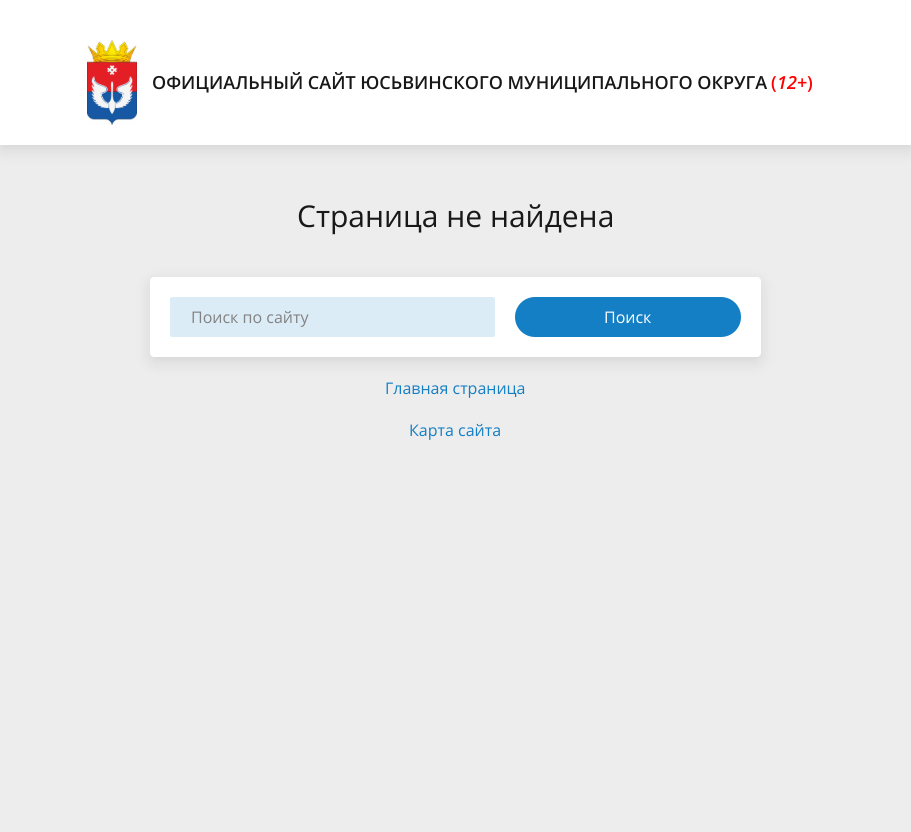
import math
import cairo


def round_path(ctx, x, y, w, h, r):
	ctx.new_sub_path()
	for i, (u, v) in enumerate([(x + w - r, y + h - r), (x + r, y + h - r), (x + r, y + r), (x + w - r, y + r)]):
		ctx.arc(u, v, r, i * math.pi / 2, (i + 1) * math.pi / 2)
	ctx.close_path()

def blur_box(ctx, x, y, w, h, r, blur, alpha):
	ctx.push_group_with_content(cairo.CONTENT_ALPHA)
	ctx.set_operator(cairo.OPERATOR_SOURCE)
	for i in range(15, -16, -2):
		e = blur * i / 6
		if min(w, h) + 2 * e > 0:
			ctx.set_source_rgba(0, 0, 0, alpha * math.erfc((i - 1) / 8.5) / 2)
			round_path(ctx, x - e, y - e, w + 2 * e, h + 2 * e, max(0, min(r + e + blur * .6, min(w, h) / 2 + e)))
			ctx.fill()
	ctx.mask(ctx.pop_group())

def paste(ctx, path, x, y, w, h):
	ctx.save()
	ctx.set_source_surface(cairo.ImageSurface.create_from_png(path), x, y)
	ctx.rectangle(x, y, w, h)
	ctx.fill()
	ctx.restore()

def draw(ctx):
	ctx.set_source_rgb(0.929, 0.929, 0.929)
	ctx.paint()
	ctx.set_source_rgb(0, 0, 0)
	blur_box(ctx, 0, 5, 911, 145, 0, 7.5, 0.1)
	ctx.set_source_rgb(1, 1, 1)
	ctx.rectangle(0, 0, 911, 145)
	ctx.fill()
	paste(ctx, 'media/1.png', 87, 40, 50, 85)
	ctx.select_font_face('Open Sans SemiBold')
	ctx.set_font_size(18)
	ctx.set_source_rgb(0.094, 0.094, 0.094)
	ctx.move_to(152, 89)
	ctx.show_text('ОФИЦИАЛЬНЫЙ САЙТ ЮСЬВИНСКОГО МУНИЦИПАЛЬНОГО ОКРУГА')
	ctx.set_source_rgb(1, 0, 0)
	ctx.move_to(771, 89)
	ctx.show_text('(')
	ctx.select_font_face('Open Sans SemiBold', cairo.FONT_SLANT_ITALIC)
	ctx.move_to(777, 89)
	ctx.show_text('12+')
	ctx.select_font_face('Open Sans SemiBold')
	ctx.move_to(807, 89)
	ctx.show_text(')')
	ctx.select_font_face('Open Sans')
	ctx.set_font_size(30)
	ctx.set_source_rgb(0.094, 0.094, 0.094)
	ctx.move_to(297, 227)
	ctx.show_text('Страница не найдена')
	ctx.set_source_rgb(0, 0, 0)
	blur_box(ctx, 150, 282, 611, 80, 4, 7.5, 0.1)
	ctx.set_source_rgb(1, 1, 1)
	round_path(ctx, 150, 277, 611, 80, 4)
	ctx.fill()
	ctx.set_source_rgb(0.863, 0.925, 0.965)
	round_path(ctx, 170, 297, 325, 40, 2)
	ctx.fill()
	ctx.set_font_size(16)
	ctx.set_source_rgb(0.51, 0.51, 0.51)
	ctx.move_to(191, 323)
	ctx.show_text('Поиск по сайту')
	ctx.set_source_rgb(0.082, 0.498, 0.769)
	round_path(ctx, 515, 297, 226, 40, 20)
	ctx.fill()
	ctx.set_source_rgb(1, 1, 1)
	ctx.move_to(604, 323)
	ctx.show_text('Поиск')
	ctx.set_source_rgb(0.082, 0.498, 0.769)
	ctx.move_to(385, 394)
	ctx.show_text('Главная страница')
	ctx.move_to(409, 436)
	ctx.show_text('Карта сайта')


surface = cairo.ImageSurface(cairo.FORMAT_RGB24, 911, 832)
ctx = cairo.Context(surface)
options = cairo.FontOptions()
options.set_hint_metrics(cairo.HINT_METRICS_OFF)
options.set_hint_style(cairo.HINT_STYLE_NONE)
ctx.set_font_options(options)
ctx.set_miter_limit(4)
draw(ctx)
surface.write_to_png('image.png')
